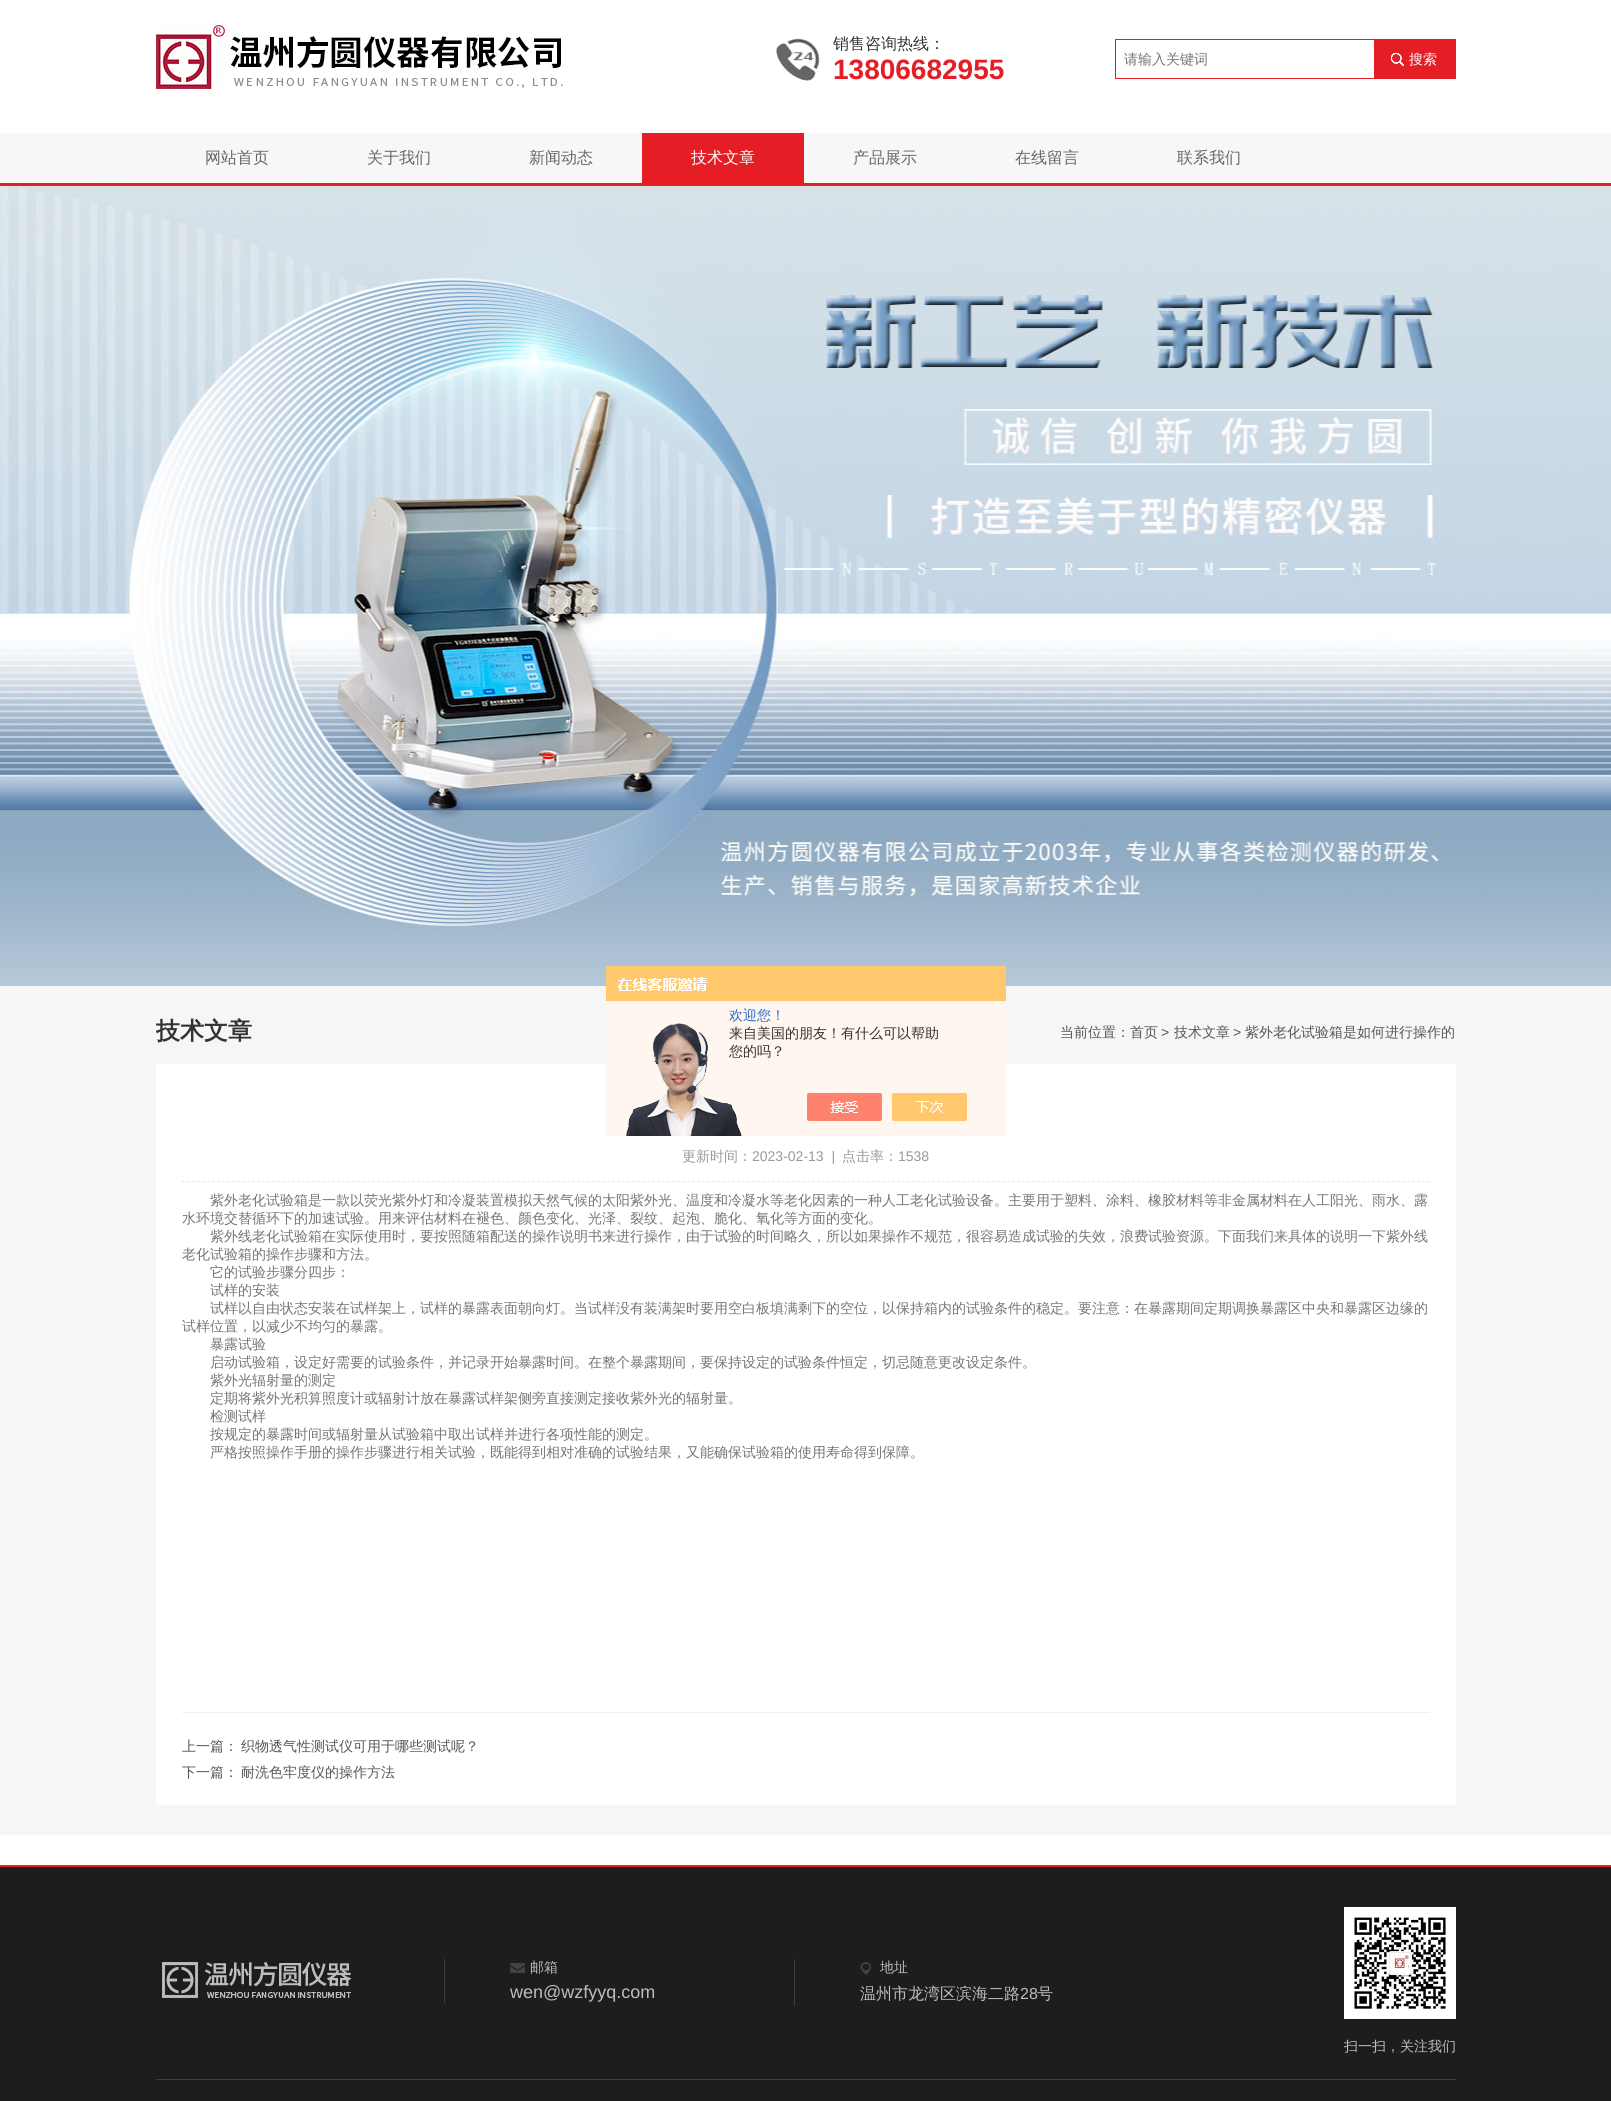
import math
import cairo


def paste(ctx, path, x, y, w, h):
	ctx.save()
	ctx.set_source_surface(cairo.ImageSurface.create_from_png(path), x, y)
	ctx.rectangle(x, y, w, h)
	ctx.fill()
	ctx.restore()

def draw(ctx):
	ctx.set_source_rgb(1, 1, 1)
	ctx.paint()
	paste(ctx, 'media/1.png', 156, 22, 407, 72)
	paste(ctx, 'media/2.png', 776, 38, 44, 43)
	ctx.select_font_face('WenQuanYi Zen Hei Medium')
	ctx.set_font_size(16)
	ctx.set_source_rgb(0.2, 0.2, 0.2)
	ctx.move_to(833, 49)
	ctx.show_text('销售咨询热线：')
	ctx.select_font_face('Liberation Sans', cairo.FONT_SLANT_NORMAL, cairo.FONT_WEIGHT_BOLD)
	ctx.set_font_size(28)
	ctx.set_source_rgb(0.898, 0.118, 0.145)
	ctx.move_to(833, 79)
	ctx.show_text('13806682955')
	ctx.rectangle(1115.5, 39.5, 340, 39)
	ctx.set_line_width(1)
	ctx.stroke()
	ctx.select_font_face('WenQuanYi Zen Hei Medium')
	ctx.set_font_size(14)
	ctx.set_source_rgb(0.459, 0.459, 0.459)
	ctx.move_to(1124, 64)
	ctx.show_text('请输入关键词')
	ctx.set_source_rgb(0.898, 0.118, 0.145)
	ctx.rectangle(1374, 40, 81, 38)
	ctx.fill()
	paste(ctx, 'media/3.png', 1391, 53, 13, 13)
	ctx.set_source_rgb(1, 1, 1)
	ctx.move_to(1409, 64)
	ctx.show_text('搜索')
	ctx.set_source_rgb(0.965, 0.965, 0.965)
	ctx.rectangle(0, 133, 1611, 50)
	ctx.fill()
	ctx.set_source_rgb(0.898, 0.118, 0.145)
	ctx.rectangle(0, 183, 1611, 3)
	ctx.fill()
	ctx.set_font_size(16)
	ctx.set_source_rgb(0.4, 0.4, 0.4)
	for x, y, s in [
		(205, 163, '网站首页'),
		(367, 163, '关于我们'),
		(529, 163, '新闻动态'),
	]:
		ctx.move_to(x, y)
		ctx.show_text(s)
	ctx.set_source_rgb(0.898, 0.118, 0.145)
	ctx.rectangle(642, 133, 162, 50)
	ctx.fill()
	ctx.set_source_rgb(1, 1, 1)
	ctx.move_to(691, 163)
	ctx.show_text('技术文章')
	ctx.set_source_rgb(0.4, 0.4, 0.4)
	for x, y, s in [
		(853, 163, '产品展示'),
		(1015, 163, '在线留言'),
		(1177, 163, '联系我们'),
	]:
		ctx.move_to(x, y)
		ctx.show_text(s)
	paste(ctx, 'media/4.png', 0, 186, 1611, 800)
	ctx.set_source_rgb(0.961, 0.961, 0.961)
	ctx.rectangle(0, 986, 1611, 849)
	ctx.fill()
	ctx.set_source_rgb(1, 1, 1)
	ctx.rectangle(156, 1064, 1300, 741)
	ctx.fill()
	paste(ctx, 'media/5.png', 606, 966, 400, 170)
	ctx.set_font_size(14)
	ctx.set_source_rgb(0.18, 0.431, 0.776)
	ctx.move_to(729, 1020)
	ctx.show_text('欢迎您！')
	ctx.set_source_rgb(0.2, 0.2, 0.2)
	ctx.move_to(729, 1038)
	ctx.show_text('来自美国的朋友！有什么可以帮助')
	ctx.move_to(729, 1056)
	ctx.show_text('您的吗？')
	ctx.save()
	ctx.rectangle(156, 1016, 1300, 789)
	ctx.clip()
	ctx.select_font_face('WenQuanYi Zen Hei', cairo.FONT_SLANT_NORMAL, cairo.FONT_WEIGHT_BOLD)
	ctx.set_font_size(24)
	ctx.move_to(156, 1039)
	ctx.show_text('技术文章')
	ctx.restore()
	ctx.set_source_rgb(0.333, 0.333, 0.333)
	ctx.move_to(1060, 1037)
	ctx.show_text('当前位置：首页')
	ctx.select_font_face('Liberation Sans')
	ctx.move_to(1161, 1037)
	ctx.show_text('>')
	ctx.select_font_face('WenQuanYi Zen Hei Medium')
	ctx.move_to(1174, 1037)
	ctx.show_text('技术文章')
	ctx.select_font_face('Liberation Sans')
	ctx.move_to(1233, 1037)
	ctx.show_text('>')
	ctx.select_font_face('WenQuanYi Zen Hei Medium')
	ctx.move_to(1245, 1037)
	ctx.show_text('紫外老化试验箱是如何进行操作的')
	ctx.new_path()
	ctx.move_to(182, 1181.5)
	ctx.line_to(1430, 1181.5)
	ctx.set_source_rgb(0.902, 0.902, 0.902)
	ctx.set_dash([3, 2])
	ctx.stroke()
	ctx.set_source_rgb(0.6, 0.6, 0.6)
	ctx.move_to(682, 1161)
	ctx.show_text('更新时间：')
	ctx.select_font_face('Liberation Sans')
	ctx.move_to(752, 1161)
	ctx.show_text('2023-02-13  |')
	ctx.select_font_face('WenQuanYi Zen Hei Medium')
	ctx.move_to(842, 1161)
	ctx.show_text('点击率：')
	ctx.select_font_face('Liberation Sans')
	ctx.move_to(898, 1161)
	ctx.show_text('1538')
	ctx.select_font_face('WenQuanYi Zen Hei Medium')
	ctx.set_source_rgb(0.459, 0.459, 0.459)
	for x, y, s in [
		(210, 1205, '紫外老化试验箱是一款以荧光紫外灯和冷凝装置模拟天然气候的太阳紫外光、温度和冷凝水等老化因素的一种人工老化试验设备。主要用于塑料、涂料、橡胶材料等非金属材料在人工阳光、雨水、露'),
		(182, 1223, '水环境交替循环下的加速试验。用来评估材料在褪色、颜色变化、光泽、裂纹、起泡、脆化、氧化等方面的变化。'),
		(210, 1241, '紫外线老化试验箱在实际使用时，要按照随箱配送的操作说明书来进行操作，由于试验的时间略久，所以如果操作不规范，很容易造成试验的失效，浪费试验资源。下面我们来具体的说明一下紫外线'),
		(182, 1259, '老化试验箱的操作步骤和方法。'),
		(210, 1277, '它的试验步骤分四步：'),
		(210, 1295, '试样的安装'),
		(210, 1313, '试样以自由状态安装在试样架上，试样的暴露表面朝向灯。当试样没有装满架时要用空白板填满剩下的空位，以保持箱内的试验条件的稳定。要注意：在暴露期间定期调换暴露区中央和暴露区边缘的'),
		(182, 1331, '试样位置，以减少不均匀的暴露。'),
		(210, 1349, '暴露试验'),
		(210, 1367, '启动试验箱，设定好需要的试验条件，并记录开始暴露时间。在整个暴露期间，要保持设定的试验条件恒定，切忌随意更改设定条件。'),
		(210, 1385, '紫外光辐射量的测定'),
		(210, 1403, '定期将紫外光积算照度计或辐射计放在暴露试样架侧旁直接测定接收紫外光的辐射量。'),
		(210, 1421, '检测试样'),
		(210, 1439, '按规定的暴露时间或辐射量从试验箱中取出试样并进行各项性能的测定。'),
		(210, 1457, '严格按照操作手册的操作步骤进行相关试验，既能得到相对准确的试验结果，又能确保试验箱的使用寿命得到保障。'),
	]:
		ctx.move_to(x, y)
		ctx.show_text(s)
	ctx.set_source_rgb(0.945, 0.945, 0.945)
	ctx.rectangle(182, 1712, 1248, 1)
	ctx.fill()
	ctx.set_source_rgb(0.333, 0.333, 0.333)
	for x, y, s in [
		(182, 1751, '上一篇：'),
		(241, 1751, '织物透气性测试仪可用于哪些测试呢？'),
		(182, 1777, '下一篇：'),
		(241, 1777, '耐洗色牢度仪的操作方法'),
	]:
		ctx.move_to(x, y)
		ctx.show_text(s)
	ctx.set_source_rgb(0.114, 0.114, 0.114)
	ctx.rectangle(0, 1867, 1611, 234)
	ctx.fill()
	ctx.set_source_rgb(0.898, 0.118, 0.145)
	ctx.rectangle(0, 1865, 1611, 2)
	ctx.fill()
	paste(ctx, 'media/6.png', 162, 1962, 190, 36)
	ctx.set_source_rgb(0.243, 0.243, 0.243)
	ctx.rectangle(444, 1959, 1, 44)
	ctx.fill()
	paste(ctx, 'media/7.png', 510, 1963, 15, 10)
	ctx.set_source_rgb(0.741, 0.741, 0.741)
	ctx.move_to(530, 1972)
	ctx.show_text('邮箱')
	ctx.select_font_face('Liberation Sans')
	ctx.set_font_size(18)
	ctx.move_to(510, 1998)
	ctx.show_text('wen@wzfyyq.com')
	ctx.set_source_rgb(0.243, 0.243, 0.243)
	ctx.rectangle(794, 1959, 1, 47)
	ctx.fill()
	paste(ctx, 'media/8.png', 860, 1962, 11, 13)
	ctx.select_font_face('WenQuanYi Zen Hei Medium')
	ctx.set_font_size(14)
	ctx.set_source_rgb(0.741, 0.741, 0.741)
	ctx.move_to(880, 1972)
	ctx.show_text('地址')
	ctx.set_font_size(16)
	ctx.move_to(860, 1999)
	ctx.show_text('温州市龙湾区滨海二路')
	ctx.select_font_face('Liberation Sans')
	ctx.move_to(1020, 1999)
	ctx.show_text('28')
	ctx.select_font_face('WenQuanYi Zen Hei Medium')
	ctx.move_to(1037, 1999)
	ctx.show_text('号')
	ctx.set_source_rgb(1, 1, 1)
	ctx.rectangle(1344, 1907, 112, 112)
	ctx.fill()
	paste(ctx, 'media/9.png', 1354, 1917, 92, 92)
	ctx.save()
	ctx.rectangle(1344, 1907, 112, 152)
	ctx.clip()
	ctx.set_font_size(14)
	ctx.set_source_rgb(0.741, 0.741, 0.741)
	ctx.move_to(1344, 2051)
	ctx.show_text('扫一扫，关注我们')
	ctx.restore()
	ctx.set_source_rgb(0.243, 0.243, 0.243)
	ctx.rectangle(156, 2079, 1300, 1)
	ctx.fill()


surface = cairo.ImageSurface(cairo.FORMAT_RGB24, 1611, 2101)
ctx = cairo.Context(surface)
options = cairo.FontOptions()
options.set_hint_metrics(cairo.HINT_METRICS_OFF)
options.set_hint_style(cairo.HINT_STYLE_NONE)
ctx.set_font_options(options)
ctx.set_miter_limit(4)
draw(ctx)
surface.write_to_png('image.png')
